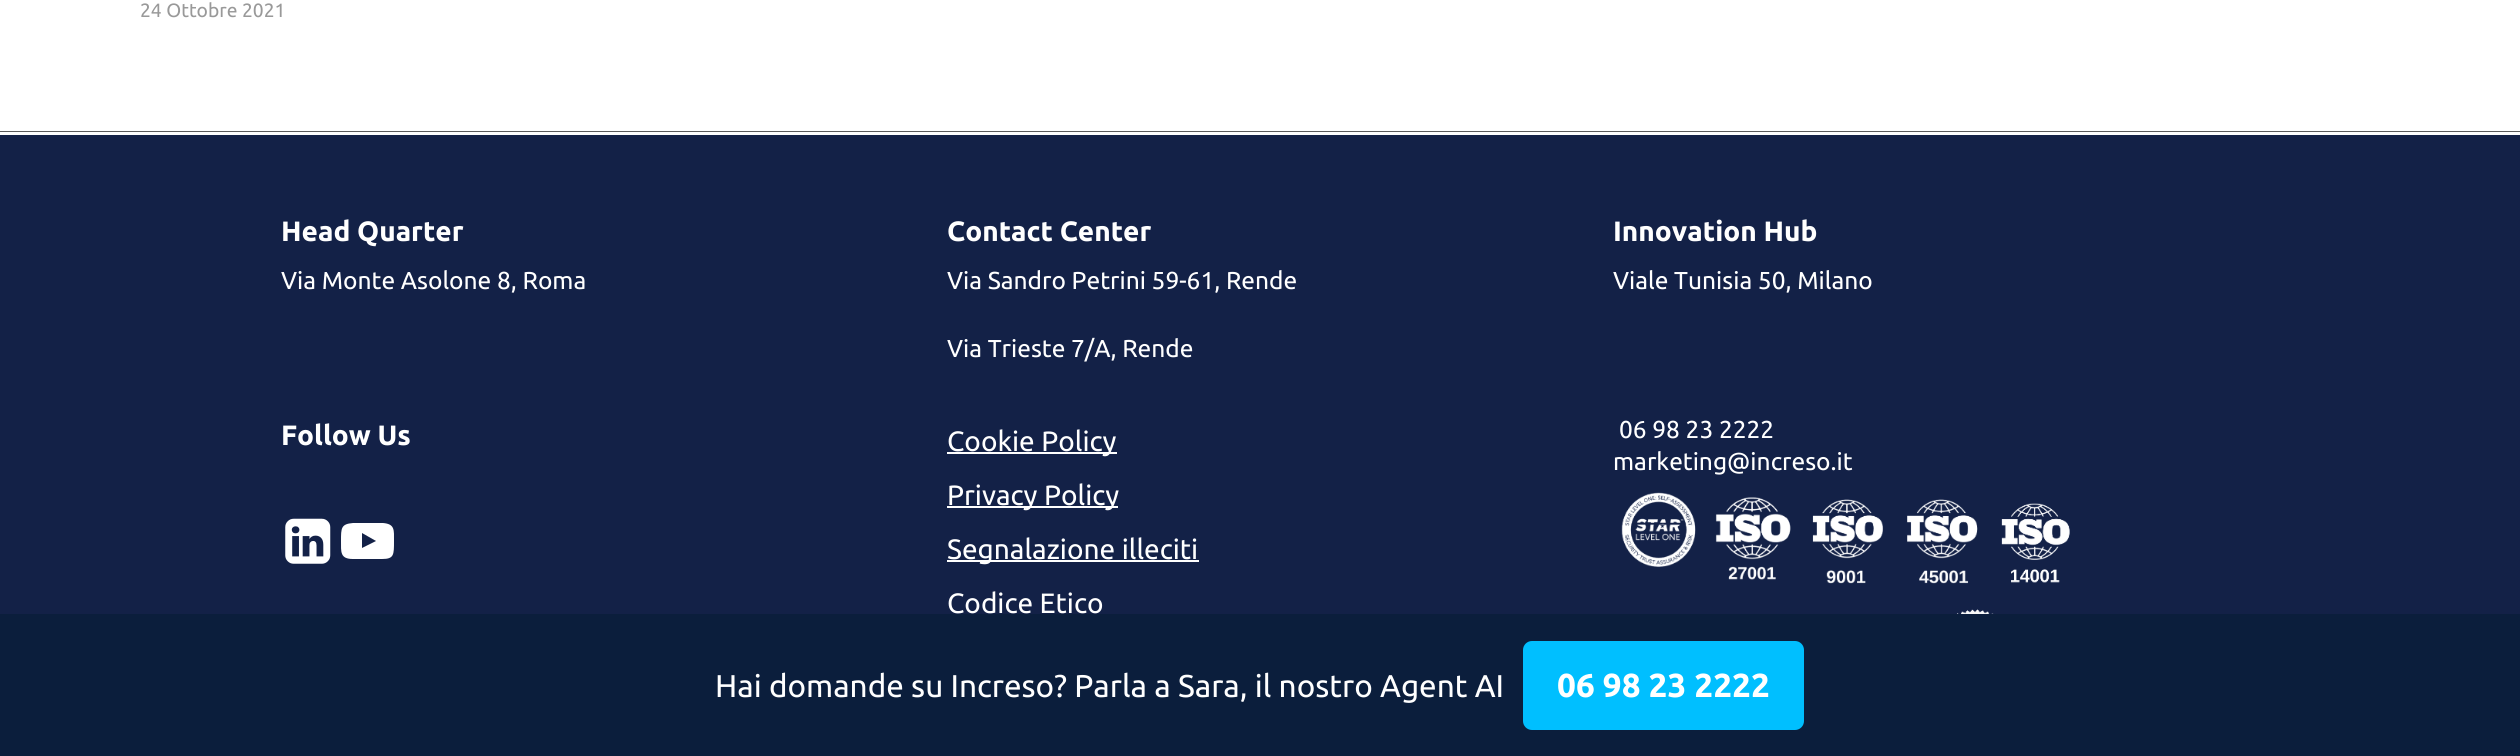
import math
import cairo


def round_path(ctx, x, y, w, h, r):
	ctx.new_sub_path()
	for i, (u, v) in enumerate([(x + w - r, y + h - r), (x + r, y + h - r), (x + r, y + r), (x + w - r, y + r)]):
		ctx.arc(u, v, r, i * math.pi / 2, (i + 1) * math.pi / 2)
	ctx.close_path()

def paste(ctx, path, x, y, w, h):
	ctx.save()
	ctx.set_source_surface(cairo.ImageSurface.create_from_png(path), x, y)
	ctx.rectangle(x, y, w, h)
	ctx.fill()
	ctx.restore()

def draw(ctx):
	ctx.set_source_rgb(1, 1, 1)
	ctx.paint()
	ctx.select_font_face('Ubuntu')
	ctx.set_font_size(19.25)
	ctx.set_source_rgb(0.6, 0.6, 0.6)
	ctx.move_to(140, 17)
	ctx.show_text('24 Ottobre 2021')
	ctx.set_source_rgb(0.357, 0.357, 0.357)
	ctx.rectangle(0, 131, 2520, 1)
	ctx.fill()
	ctx.set_source_rgb(0.075, 0.129, 0.278)
	ctx.rectangle(0, 135, 2520, 479)
	ctx.fill()
	ctx.select_font_face('Ubuntu', cairo.FONT_SLANT_NORMAL, cairo.FONT_WEIGHT_BOLD)
	ctx.set_font_size(28)
	ctx.set_source_rgb(1, 1, 1)
	ctx.move_to(281, 241)
	ctx.show_text('Head Quarter')
	ctx.select_font_face('Ubuntu')
	ctx.set_font_size(24.5)
	ctx.move_to(281, 289)
	ctx.show_text('Via Monte Asolone 8, Roma')
	ctx.select_font_face('Ubuntu', cairo.FONT_SLANT_NORMAL, cairo.FONT_WEIGHT_BOLD)
	ctx.set_font_size(28)
	ctx.move_to(947, 241)
	ctx.show_text('Contact Center')
	ctx.select_font_face('Ubuntu')
	ctx.set_font_size(24.5)
	ctx.move_to(947, 289)
	ctx.show_text('Via Sandro Petrini 59-61, Rende')
	ctx.move_to(947, 357)
	ctx.show_text('Via Trieste 7/A, Rende')
	ctx.select_font_face('Ubuntu', cairo.FONT_SLANT_NORMAL, cairo.FONT_WEIGHT_BOLD)
	ctx.set_font_size(28)
	ctx.move_to(1613, 241)
	ctx.show_text('Innovation Hub')
	ctx.select_font_face('Ubuntu')
	ctx.set_font_size(24.5)
	ctx.move_to(1613, 289)
	ctx.show_text('Viale Tunisia 50, Milano')
	ctx.select_font_face('Ubuntu', cairo.FONT_SLANT_NORMAL, cairo.FONT_WEIGHT_BOLD)
	ctx.set_font_size(28)
	ctx.move_to(281, 445)
	ctx.show_text('Follow Us')
	paste(ctx, 'media/1.png', 285, 518, 46, 46)
	ctx.new_path()
	ctx.move_to(362, 548)
	ctx.line_to(376, 541)
	ctx.line_to(362, 533)
	ctx.close_path()
	ctx.move_to(368, 523)
	ctx.line_to(383, 523)
	ctx.curve_to(395, 524, 394, 530, 394, 541)
	ctx.curve_to(394, 555, 394, 559, 382, 559)
	ctx.line_to(353, 559)
	ctx.curve_to(340, 559, 341, 552, 341, 541)
	ctx.curve_to(341, 528, 341, 524, 353, 523)
	ctx.close_path()
	ctx.fill()
	ctx.rectangle(947, 452, 170, 2)
	ctx.fill()
	ctx.select_font_face('Ubuntu')
	ctx.move_to(947, 451)
	ctx.show_text('Cookie Policy')
	ctx.rectangle(947, 506, 171, 2)
	ctx.fill()
	ctx.move_to(947, 505)
	ctx.show_text('Privacy Policy')
	ctx.rectangle(947, 560, 252, 2)
	ctx.fill()
	ctx.move_to(947, 559)
	ctx.show_text('Segnalazione illeciti')
	ctx.move_to(947, 613)
	ctx.show_text('Codice Etico')
	ctx.set_font_size(24.5)
	ctx.move_to(1619, 438)
	ctx.show_text('06 98 23 2222')
	ctx.move_to(1613, 470)
	ctx.show_text('marketing@increso.it')
	paste(ctx, 'media/2.png', 1621, 492, 449, 122)
	ctx.set_source_rgb(0.043, 0.118, 0.235)
	ctx.rectangle(0, 614, 2520, 142)
	ctx.fill()
	ctx.set_font_size(31.5)
	ctx.set_source_rgb(1, 1, 1)
	ctx.move_to(715, 697)
	ctx.show_text('Hai domande su Increso? Parla a Sara, il nostro Agent AI')
	ctx.set_source_rgb(0, 0.749, 1)
	round_path(ctx, 1523, 641, 281, 89, 9)
	ctx.fill()
	ctx.select_font_face('Ubuntu', cairo.FONT_SLANT_NORMAL, cairo.FONT_WEIGHT_BOLD)
	ctx.set_font_size(33.25)
	ctx.set_source_rgb(1, 1, 1)
	ctx.move_to(1557, 697)
	ctx.show_text('06 98 23 2222')


surface = cairo.ImageSurface(cairo.FORMAT_RGB24, 2520, 756)
ctx = cairo.Context(surface)
options = cairo.FontOptions()
options.set_hint_metrics(cairo.HINT_METRICS_OFF)
options.set_hint_style(cairo.HINT_STYLE_NONE)
ctx.set_font_options(options)
ctx.set_miter_limit(4)
draw(ctx)
surface.write_to_png('image.png')
